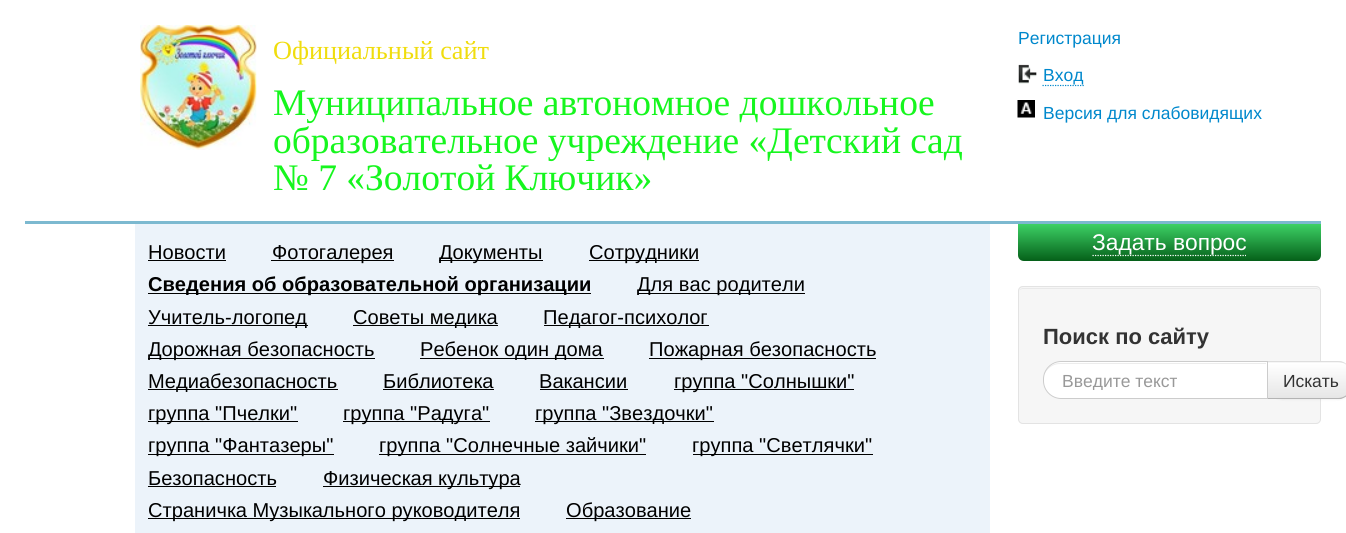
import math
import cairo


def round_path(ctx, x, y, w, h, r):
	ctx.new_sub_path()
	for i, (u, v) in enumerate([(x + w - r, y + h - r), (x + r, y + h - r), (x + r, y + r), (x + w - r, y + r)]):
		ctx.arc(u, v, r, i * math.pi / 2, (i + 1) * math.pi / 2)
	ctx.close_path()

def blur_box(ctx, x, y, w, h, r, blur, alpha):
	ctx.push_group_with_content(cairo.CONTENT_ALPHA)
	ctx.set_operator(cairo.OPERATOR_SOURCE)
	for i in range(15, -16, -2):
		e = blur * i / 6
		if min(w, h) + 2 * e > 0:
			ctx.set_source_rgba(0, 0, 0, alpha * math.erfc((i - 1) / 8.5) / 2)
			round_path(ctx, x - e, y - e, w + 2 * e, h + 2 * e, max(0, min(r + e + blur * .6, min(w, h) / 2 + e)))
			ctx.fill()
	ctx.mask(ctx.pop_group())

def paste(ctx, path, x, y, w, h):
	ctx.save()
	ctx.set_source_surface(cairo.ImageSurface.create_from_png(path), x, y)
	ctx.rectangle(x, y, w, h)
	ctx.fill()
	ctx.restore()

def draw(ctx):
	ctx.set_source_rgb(1, 1, 1)
	ctx.paint()
	ctx.set_source_rgb(0.486, 0.725, 0.816)
	ctx.rectangle(25, 221, 1296, 3)
	ctx.fill()
	paste(ctx, 'media/1.png', 140, 25, 117, 125)
	ctx.select_font_face('Liberation Serif')
	ctx.set_font_size(26.25)
	ctx.set_source_rgb(0.941, 0.867, 0.055)
	ctx.move_to(273, 59)
	ctx.show_text('Официальный сайт')
	ctx.set_font_size(37.5)
	ctx.set_source_rgb(0.086, 0.961, 0.118)
	for x, y, s in [
		(273, 115, 'Муниципальное автономное дошкольное'),
		(273, 153, 'образовательное учреждение «Детский сад'),
		(273, 190, '№ 7 «Золотой Ключик»'),
	]:
		ctx.move_to(x, y)
		ctx.show_text(s)
	ctx.select_font_face('Liberation Sans')
	ctx.set_font_size(17.5)
	ctx.set_source_rgb(0, 0.533, 0.8)
	ctx.move_to(1018, 44)
	ctx.show_text('Регистрация')
	paste(ctx, 'media/2.png', 1018, 64, 19, 20)
	ctx.new_path()
	ctx.move_to(1042.5, 85.5)
	ctx.line_to(1084, 85.5)
	ctx.set_line_width(1.2)
	ctx.set_dash([1.25, 1.25])
	ctx.stroke()
	ctx.move_to(1043, 81)
	ctx.show_text('Вход')
	paste(ctx, 'media/3.png', 1017, 100, 18, 18)
	ctx.move_to(1043, 119)
	ctx.show_text('Версия для слабовидящих')
	ctx.set_source_rgb(0.922, 0.953, 0.98)
	ctx.rectangle(135, 224, 855, 309)
	ctx.fill()
	ctx.set_font_size(20.1)
	ctx.set_source_rgb(0, 0, 0)
	ctx.move_to(148, 259)
	ctx.show_text('Новости')
	ctx.rectangle(148, 260, 78, 1)
	ctx.fill()
	ctx.rectangle(271, 260, 123, 1)
	ctx.fill()
	ctx.move_to(272, 259)
	ctx.show_text('Фотогалерея')
	ctx.rectangle(439, 260, 104, 1)
	ctx.fill()
	ctx.move_to(439, 259)
	ctx.show_text('Документы')
	ctx.rectangle(589, 260, 110, 1)
	ctx.fill()
	ctx.move_to(589, 259)
	ctx.show_text('Сотрудники')
	ctx.rectangle(148, 293, 443, 1)
	ctx.fill()
	ctx.select_font_face('Liberation Sans', cairo.FONT_SLANT_NORMAL, cairo.FONT_WEIGHT_BOLD)
	ctx.move_to(148, 291)
	ctx.show_text('Сведения об образовательной организации')
	ctx.rectangle(638, 293, 167, 1)
	ctx.fill()
	ctx.select_font_face('Liberation Sans')
	ctx.move_to(637, 291)
	ctx.show_text('Для вас родители')
	ctx.rectangle(148, 325, 160, 1)
	ctx.fill()
	ctx.move_to(148, 324)
	ctx.show_text('Учитель-логопед')
	ctx.rectangle(353, 325, 145, 1)
	ctx.fill()
	ctx.move_to(353, 324)
	ctx.show_text('Советы медика')
	ctx.rectangle(544, 325, 165, 1)
	ctx.fill()
	ctx.move_to(543, 324)
	ctx.show_text('Педагог-психолог')
	ctx.rectangle(148, 358, 227, 1)
	ctx.fill()
	ctx.move_to(148, 356)
	ctx.show_text('Дорожная безопасность')
	ctx.rectangle(420, 358, 184, 1)
	ctx.fill()
	ctx.move_to(420, 356)
	ctx.show_text('Ребенок один дома')
	ctx.rectangle(649, 358, 227, 1)
	ctx.fill()
	ctx.move_to(649, 356)
	ctx.show_text('Пожарная безопасность')
	ctx.rectangle(148, 389, 190, 1)
	ctx.fill()
	ctx.move_to(148, 388)
	ctx.show_text('Медиабезопасность')
	ctx.move_to(383, 388)
	ctx.show_text('Библиотека')
	ctx.rectangle(383, 389, 111, 1)
	ctx.fill()
	ctx.move_to(539, 388)
	ctx.show_text('Вакансии')
	ctx.rectangle(540, 389, 88, 1)
	ctx.fill()
	ctx.rectangle(674, 389, 180, 1)
	ctx.fill()
	ctx.move_to(674, 388)
	ctx.show_text('группа "Солнышки"')
	ctx.rectangle(148, 421, 150, 1)
	ctx.fill()
	ctx.move_to(148, 420)
	ctx.show_text('группа "Пчелки"')
	ctx.rectangle(343, 421, 147, 1)
	ctx.fill()
	ctx.move_to(343, 420)
	ctx.show_text('группа "Радуга"')
	ctx.rectangle(535, 421, 179, 1)
	ctx.fill()
	ctx.move_to(535, 420)
	ctx.show_text('группа "Звездочки"')
	ctx.rectangle(148, 454, 186, 1)
	ctx.fill()
	ctx.move_to(148, 452)
	ctx.show_text('группа "Фантазеры"')
	ctx.rectangle(379, 454, 267, 1)
	ctx.fill()
	ctx.move_to(379, 452)
	ctx.show_text('группа "Солнечные зайчики"')
	ctx.rectangle(693, 454, 180, 1)
	ctx.fill()
	ctx.move_to(692, 452)
	ctx.show_text('группа "Светлячки"')
	ctx.move_to(148, 485)
	ctx.show_text('Безопасность')
	ctx.rectangle(148, 486, 128, 1)
	ctx.fill()
	ctx.rectangle(323, 486, 197, 1)
	ctx.fill()
	ctx.move_to(323, 485)
	ctx.show_text('Физическая культура')
	ctx.rectangle(148, 518, 372, 1)
	ctx.fill()
	ctx.move_to(148, 517)
	ctx.show_text('Страничка Музыкального руководителя')
	ctx.rectangle(566, 518, 125, 1)
	ctx.fill()
	ctx.move_to(566, 517)
	ctx.show_text('Образование')
	gradient = cairo.LinearGradient(1169, 224, 1169, 261)
	gradient.add_color_stop_rgba(0, 0.239, 0.82, 0.4, 1)
	gradient.add_color_stop_rgba(1, 0.02, 0.376, 0.098, 1)
	ctx.set_source(gradient)
	ctx.new_path()
	ctx.move_to(1018, 224)
	ctx.line_to(1321, 224)
	ctx.line_to(1321, 255)
	ctx.curve_to(1321, 258.5, 1318.5, 261, 1315, 261)
	ctx.line_to(1024, 261)
	ctx.curve_to(1020.5, 261, 1018, 258.5, 1018, 255)
	ctx.close_path()
	ctx.fill()
	ctx.new_path()
	ctx.move_to(1092.5, 255.5)
	ctx.line_to(1246, 255.5)
	ctx.set_source_rgb(1, 1, 1)
	ctx.stroke()
	ctx.set_font_size(22.75)
	ctx.move_to(1092, 250)
	ctx.show_text('Задать вопрос')
	ctx.set_source_rgb(0.961, 0.961, 0.961)
	round_path(ctx, 1018, 286, 303, 138, 5)
	ctx.fill()
	ctx.set_source_rgb(0.914, 0.914, 0.914)
	ctx.new_path()
	ctx.move_to(1022, 289)
	ctx.line_to(1316, 289)
	ctx.curve_to(1318, 289, 1320, 290, 1320, 292)
	ctx.curve_to(1320, 290, 1318, 288, 1316, 288)
	ctx.line_to(1023, 288)
	ctx.curve_to(1022, 288, 1020, 289, 1020, 290)
	ctx.close_path()
	ctx.fill()
	round_path(ctx, 1018.5, 286.5, 302, 137, 4.5)
	ctx.set_source_rgb(0.89, 0.89, 0.89)
	ctx.set_line_width(1)
	ctx.set_dash([])
	ctx.stroke()
	ctx.select_font_face('Liberation Sans', cairo.FONT_SLANT_NORMAL, cairo.FONT_WEIGHT_BOLD)
	ctx.set_font_size(22)
	ctx.set_source_rgb(0.2, 0.2, 0.2)
	ctx.move_to(1043, 344)
	ctx.show_text('Поиск по сайту')
	ctx.set_source_rgb(0, 0, 0)
	blur_box(ctx, 1266, 363, 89, 37, 18, 1, 0.05)
	ctx.set_source_rgb(0.961, 0.961, 0.961)
	ctx.new_path()
	ctx.move_to(1266, 361)
	ctx.line_to(1337, 361)
	ctx.curve_to(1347, 361, 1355, 369, 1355, 379)
	ctx.line_to(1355, 381)
	ctx.curve_to(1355, 391, 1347, 399, 1337, 399)
	ctx.line_to(1266, 399)
	ctx.close_path()
	ctx.fill()
	ctx.save()
	ctx.new_path()
	ctx.move_to(1266, 361)
	ctx.line_to(1337, 361)
	ctx.curve_to(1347, 361, 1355, 369, 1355, 379)
	ctx.line_to(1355, 381)
	ctx.curve_to(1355, 391, 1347, 399, 1337, 399)
	ctx.line_to(1266, 399)
	ctx.close_path()
	ctx.clip()
	gradient = cairo.LinearGradient(1311, 363, 1311, 398)
	gradient.add_color_stop_rgba(0, 1, 1, 1, 1)
	gradient.add_color_stop_rgba(1, 0.902, 0.902, 0.902, 1)
	ctx.set_source(gradient)
	ctx.rectangle(1268, 363, 78, 35)
	ctx.fill()
	ctx.restore()
	ctx.set_source_rgba(0, 0, 0, 0.1)
	ctx.new_path()
	ctx.move_to(1268, 362)
	ctx.line_to(1268, 363)
	ctx.line_to(1266, 361)
	ctx.line_to(1341, 361)
	ctx.curve_to(1344, 362, 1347, 364, 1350, 366)
	ctx.line_to(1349, 367)
	ctx.curve_to(1346, 364, 1342, 362, 1338, 362)
	ctx.close_path()
	ctx.fill()
	ctx.set_source_rgb(0.702, 0.702, 0.702)
	ctx.new_path()
	ctx.move_to(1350, 394)
	ctx.curve_to(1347, 396, 1344, 398, 1341, 399)
	ctx.line_to(1266, 399)
	ctx.line_to(1268, 397)
	ctx.line_to(1268, 398)
	ctx.line_to(1338, 398)
	ctx.curve_to(1342, 398, 1346, 396, 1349, 393)
	ctx.close_path()
	ctx.fill()
	ctx.set_source_rgb(1, 1, 1)
	ctx.new_path()
	ctx.move_to(1061, 361)
	ctx.line_to(1268, 361)
	ctx.line_to(1268, 399)
	ctx.line_to(1061, 399)
	ctx.curve_to(1051, 399, 1043, 391, 1043, 381)
	ctx.line_to(1043, 379)
	ctx.curve_to(1043, 369, 1051, 361, 1061, 361)
	ctx.close_path()
	ctx.fill()
	ctx.set_source_rgb(0.925, 0.925, 0.925)
	ctx.new_path()
	ctx.move_to(1060, 364)
	ctx.line_to(1266, 364)
	ctx.line_to(1266, 363)
	ctx.line_to(1060, 363)
	ctx.curve_to(1052, 363, 1046, 368, 1044, 375)
	ctx.curve_to(1047, 369, 1052, 364, 1060, 364)
	ctx.close_path()
	ctx.fill()
	ctx.new_path()
	ctx.move_to(1061, 361.5)
	ctx.line_to(1267.5, 361.5)
	ctx.line_to(1267.5, 398.5)
	ctx.line_to(1061, 398.5)
	ctx.curve_to(1051.5, 398.5, 1043.5, 390.5, 1043.5, 381)
	ctx.line_to(1043.5, 379)
	ctx.curve_to(1043.5, 369.5, 1051.5, 361.5, 1061, 361.5)
	ctx.close_path()
	ctx.set_source_rgb(0.8, 0.8, 0.8)
	ctx.stroke()
	ctx.save()
	ctx.rectangle(1061, 370, 188, 20)
	ctx.clip()
	ctx.select_font_face('Liberation Sans')
	ctx.set_font_size(17.5)
	ctx.set_source_rgb(0.6, 0.6, 0.6)
	ctx.move_to(1062, 387)
	ctx.show_text('Введите текст')
	ctx.restore()
	ctx.select_font_face('Liberation Sans')
	ctx.set_font_size(17.5)
	ctx.set_source_rgb(0.2, 0.2, 0.2)
	ctx.move_to(1283, 387)
	ctx.show_text('Искать')


surface = cairo.ImageSurface(cairo.FORMAT_RGB24, 1346, 533)
ctx = cairo.Context(surface)
options = cairo.FontOptions()
options.set_hint_metrics(cairo.HINT_METRICS_OFF)
options.set_hint_style(cairo.HINT_STYLE_NONE)
ctx.set_font_options(options)
ctx.set_miter_limit(4)
draw(ctx)
surface.write_to_png('image.png')
